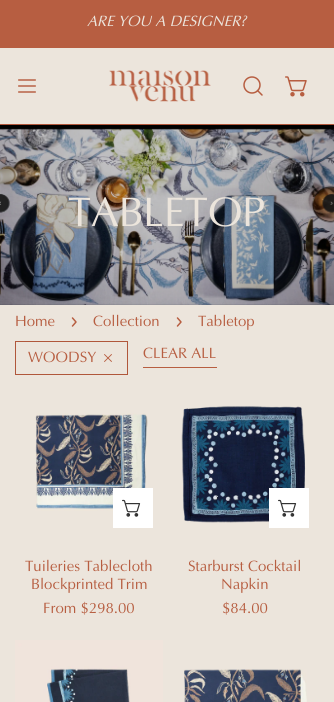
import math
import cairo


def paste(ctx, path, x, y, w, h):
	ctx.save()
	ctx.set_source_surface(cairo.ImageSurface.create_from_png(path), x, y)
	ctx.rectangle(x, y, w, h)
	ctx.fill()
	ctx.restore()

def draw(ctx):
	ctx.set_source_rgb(0.922, 0.898, 0.863)
	ctx.paint()
	ctx.set_source_rgb(0.718, 0.369, 0.255)
	ctx.rectangle(0, 0, 334, 48)
	ctx.fill()
	ctx.select_font_face('Optima', cairo.FONT_SLANT_ITALIC)
	ctx.set_font_size(15)
	ctx.set_source_rgb(0.922, 0.898, 0.863)
	ctx.move_to(87, 26)
	ctx.show_text('ARE YOU A DESIGNER?')
	ctx.set_source_rgb(0.69, 0.341, 0.231)
	ctx.rectangle(0, 124, 334, 1)
	ctx.fill()
	paste(ctx, 'media/1.png', 18, 79, 18, 14)
	paste(ctx, 'media/2.png', 109, 70, 102, 32)
	ctx.arc(252, 85, 8, 0, 2 * math.pi)
	ctx.set_source_rgb(0.718, 0.369, 0.255)
	ctx.set_line_width(1.5)
	ctx.stroke()
	ctx.new_path()
	ctx.move_to(262, 95)
	ctx.line_to(257.5, 90.5)
	ctx.set_line_cap(cairo.LINE_CAP_ROUND)
	ctx.set_line_join(cairo.LINE_JOIN_ROUND)
	ctx.stroke()
	paste(ctx, 'media/3.png', 285, 76, 22, 21)
	paste(ctx, 'media/4.png', 0, 125, 334, 180)
	ctx.select_font_face('Optima')
	ctx.set_font_size(41.5)
	ctx.set_source_rgb(0.922, 0.898, 0.863)
	ctx.move_to(68, 226)
	ctx.show_text('TABLETOP')
	ctx.set_font_size(15)
	ctx.set_source_rgb(0.718, 0.369, 0.255)
	ctx.move_to(15, 326)
	ctx.show_text('Home')
	ctx.new_path()
	ctx.move_to(72.5, 318)
	ctx.line_to(76, 322)
	ctx.line_to(72.5, 326)
	ctx.stroke()
	ctx.move_to(93, 326)
	ctx.show_text('Collection')
	ctx.new_path()
	ctx.move_to(177.5, 318)
	ctx.line_to(181, 322)
	ctx.line_to(177.5, 326)
	ctx.stroke()
	ctx.move_to(198, 326)
	ctx.show_text('Tabletop')
	ctx.rectangle(15.5, 341.5, 112, 33)
	ctx.set_source_rgb(0.69, 0.341, 0.231)
	ctx.set_line_width(1)
	ctx.set_line_cap(cairo.LINE_CAP_BUTT)
	ctx.set_line_join(cairo.LINE_JOIN_MITER)
	ctx.stroke()
	ctx.set_source_rgb(0.718, 0.369, 0.255)
	ctx.move_to(28, 362)
	ctx.show_text('WOODSY')
	paste(ctx, 'media/5.png', 104, 354, 8, 8)
	ctx.move_to(143, 358)
	ctx.show_text('CLEAR ALL')
	ctx.rectangle(143, 367, 74, 1)
	ctx.fill()
	paste(ctx, 'media/6.png', 35, 413, 113, 98)
	ctx.set_source_rgb(1, 1, 1)
	ctx.rectangle(113, 488, 40, 40)
	ctx.fill()
	paste(ctx, 'media/7.png', 122, 499, 19, 18)
	ctx.set_source_rgb(0.718, 0.369, 0.255)
	for x, y, s in [
		(25, 571, 'Tuileries Tablecloth'),
		(31, 589, 'Blockprinted Trim'),
		(43, 613, 'From $298.00'),
	]:
		ctx.move_to(x, y)
		ctx.show_text(s)
	paste(ctx, 'media/8.png', 181, 406, 125, 117)
	ctx.set_source_rgb(1, 1, 1)
	ctx.rectangle(269, 488, 40, 40)
	ctx.fill()
	paste(ctx, 'media/7.png', 278, 499, 19, 18)
	ctx.set_source_rgb(0.718, 0.369, 0.255)
	for x, y, s in [
		(188, 571, 'Starburst Cocktail'),
		(221, 589, 'Napkin'),
		(222, 613, '$84.00'),
	]:
		ctx.move_to(x, y)
		ctx.show_text(s)
	paste(ctx, 'media/9.png', 15, 640, 148, 62)
	paste(ctx, 'media/10.png', 184, 669, 123, 33)


surface = cairo.ImageSurface(cairo.FORMAT_RGB24, 334, 702)
ctx = cairo.Context(surface)
options = cairo.FontOptions()
options.set_hint_metrics(cairo.HINT_METRICS_OFF)
options.set_hint_style(cairo.HINT_STYLE_NONE)
ctx.set_font_options(options)
ctx.set_miter_limit(4)
draw(ctx)
surface.write_to_png('image.png')
